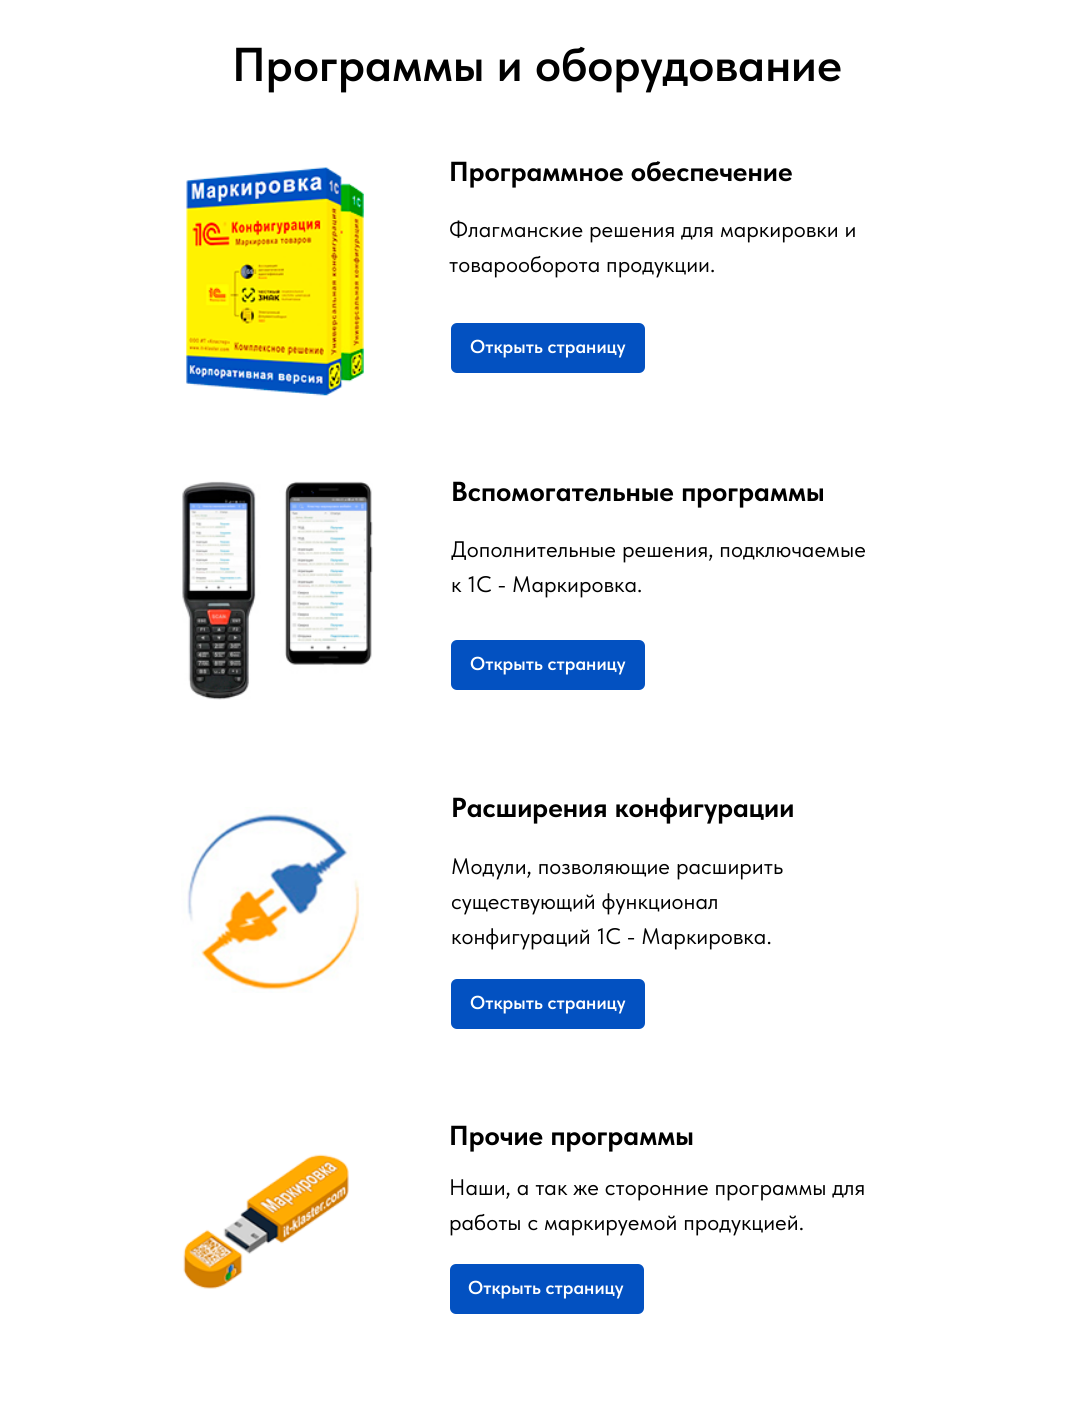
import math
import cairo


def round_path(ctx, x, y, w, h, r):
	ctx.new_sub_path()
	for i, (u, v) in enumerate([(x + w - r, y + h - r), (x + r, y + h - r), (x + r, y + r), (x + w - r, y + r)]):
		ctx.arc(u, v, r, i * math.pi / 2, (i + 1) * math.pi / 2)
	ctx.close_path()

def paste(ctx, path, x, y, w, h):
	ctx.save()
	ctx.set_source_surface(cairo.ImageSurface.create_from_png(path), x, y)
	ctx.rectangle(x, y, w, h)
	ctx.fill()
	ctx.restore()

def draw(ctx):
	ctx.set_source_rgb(1, 1, 1)
	ctx.paint()
	ctx.select_font_face('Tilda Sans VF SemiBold')
	ctx.set_font_size(47.5)
	ctx.set_source_rgb(0, 0, 0)
	ctx.move_to(232, 81)
	ctx.show_text('Программы и оборудование')
	paste(ctx, 'media/1.png', 186, 167, 178, 229)
	ctx.select_font_face('Tilda Sans VF', cairo.FONT_SLANT_NORMAL, cairo.FONT_WEIGHT_BOLD)
	ctx.set_font_size(27.5)
	ctx.move_to(449, 181)
	ctx.show_text('Программное обеспечение')
	ctx.select_font_face('Tilda Sans VF')
	ctx.set_font_size(22.5)
	ctx.move_to(449, 237)
	ctx.show_text('Флагманские решения для маркировки и')
	ctx.move_to(449, 272)
	ctx.show_text('товарооборота продукции.')
	ctx.set_source_rgb(0.012, 0.318, 0.757)
	round_path(ctx, 451, 323, 194, 50, 6)
	ctx.fill()
	ctx.select_font_face('Tilda Sans VF SemiBold')
	ctx.set_font_size(18.75)
	ctx.set_source_rgb(1, 1, 1)
	ctx.move_to(470, 353)
	ctx.show_text('Открыть страницу')
	paste(ctx, 'media/2.png', 182, 481, 191, 219)
	ctx.select_font_face('Tilda Sans VF', cairo.FONT_SLANT_NORMAL, cairo.FONT_WEIGHT_BOLD)
	ctx.set_font_size(27.5)
	ctx.set_source_rgb(0, 0, 0)
	ctx.move_to(451, 501)
	ctx.show_text('Вспомогательные программы')
	ctx.select_font_face('Tilda Sans VF')
	ctx.set_font_size(22.5)
	ctx.move_to(451, 557)
	ctx.show_text('Дополнительные решения, подключаемые')
	ctx.move_to(451, 592)
	ctx.show_text('к 1С - Маркировка.')
	ctx.set_source_rgb(0.012, 0.318, 0.757)
	round_path(ctx, 451, 640, 194, 50, 6)
	ctx.fill()
	ctx.select_font_face('Tilda Sans VF SemiBold')
	ctx.set_font_size(18.75)
	ctx.set_source_rgb(1, 1, 1)
	ctx.move_to(470, 670)
	ctx.show_text('Открыть страницу')
	paste(ctx, 'media/3.png', 181, 807, 183, 186)
	ctx.select_font_face('Tilda Sans VF', cairo.FONT_SLANT_NORMAL, cairo.FONT_WEIGHT_BOLD)
	ctx.set_font_size(27.5)
	ctx.set_source_rgb(0, 0, 0)
	ctx.move_to(451, 817)
	ctx.show_text('Расширения конфигурации')
	ctx.select_font_face('Tilda Sans VF')
	ctx.set_font_size(22.5)
	for x, y, s in [
		(451, 874, 'Модули, позволяющие расширить'),
		(451, 909, 'существующий функционал'),
		(451, 944, 'конфигураций 1С - Маркировка.'),
	]:
		ctx.move_to(x, y)
		ctx.show_text(s)
	ctx.set_source_rgb(0.012, 0.318, 0.757)
	round_path(ctx, 451, 979, 194, 50, 6)
	ctx.fill()
	ctx.select_font_face('Tilda Sans VF SemiBold')
	ctx.set_font_size(18.75)
	ctx.set_source_rgb(1, 1, 1)
	ctx.move_to(470, 1009)
	ctx.show_text('Открыть страницу')
	ctx.select_font_face('Tilda Sans VF', cairo.FONT_SLANT_NORMAL, cairo.FONT_WEIGHT_BOLD)
	ctx.set_font_size(27.5)
	ctx.set_source_rgb(0, 0, 0)
	ctx.move_to(449, 1145)
	ctx.show_text('Прочие программы')
	paste(ctx, 'media/4.png', 183, 1154, 166, 135)
	ctx.select_font_face('Tilda Sans VF')
	ctx.set_font_size(22.5)
	ctx.move_to(449, 1195)
	ctx.show_text('Наши, а так же сторонние программы для')
	ctx.move_to(449, 1230)
	ctx.show_text('работы с маркируемой продукцией.')
	ctx.set_source_rgb(0.012, 0.318, 0.757)
	round_path(ctx, 450, 1264, 194, 50, 6)
	ctx.fill()
	ctx.select_font_face('Tilda Sans VF SemiBold')
	ctx.set_font_size(18.75)
	ctx.set_source_rgb(1, 1, 1)
	ctx.move_to(468, 1294)
	ctx.show_text('Открыть страницу')


surface = cairo.ImageSurface(cairo.FORMAT_RGB24, 1073, 1418)
ctx = cairo.Context(surface)
options = cairo.FontOptions()
options.set_hint_metrics(cairo.HINT_METRICS_OFF)
options.set_hint_style(cairo.HINT_STYLE_NONE)
ctx.set_font_options(options)
ctx.set_miter_limit(4)
draw(ctx)
surface.write_to_png('image.png')
